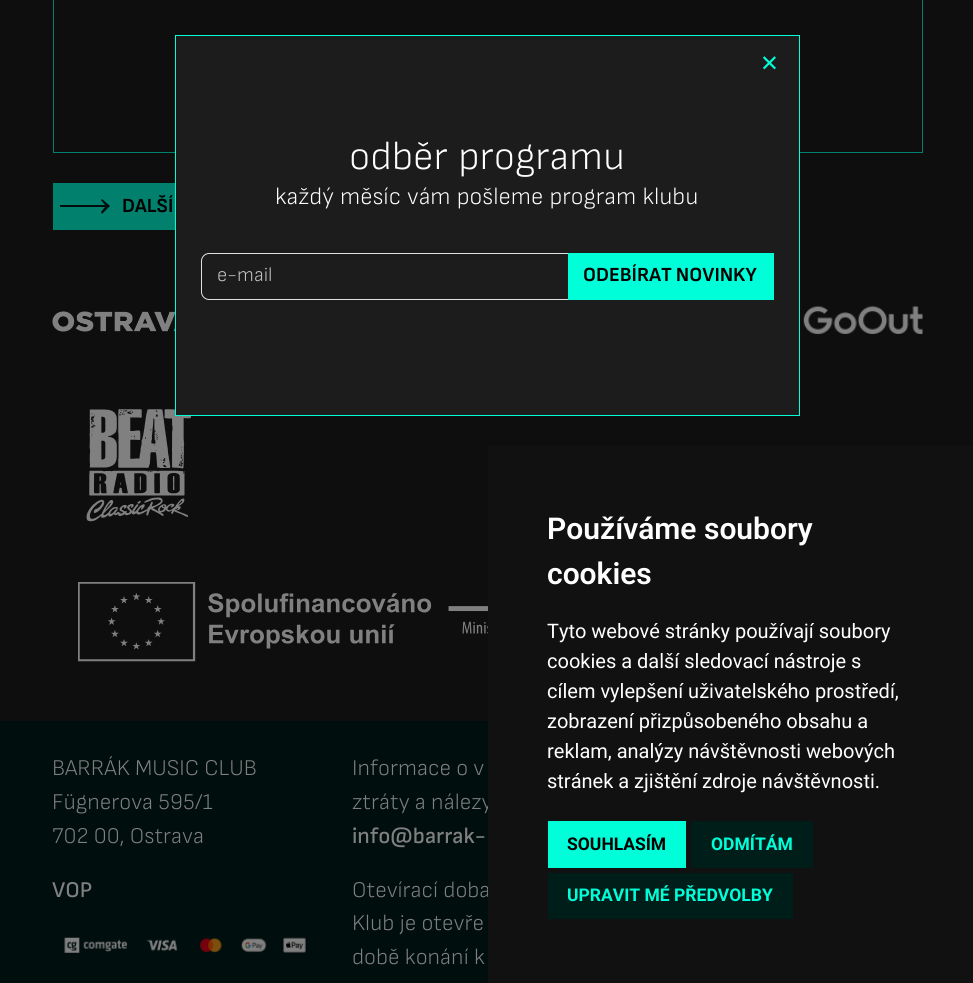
import math
import cairo


def write_spaced(ctx, x, y, s, letter, word):
	ctx.move_to(x, y)
	for ch in s:
		ctx.show_text(ch)
		ctx.rel_move_to(letter + word * (ch == ' '), 0)

def paste(ctx, path, x, y, w, h):
	ctx.save()
	ctx.set_source_surface(cairo.ImageSurface.create_from_png(path), x, y)
	ctx.rectangle(x, y, w, h)
	ctx.fill()
	ctx.restore()

def draw(ctx):
	ctx.set_source_rgb(0.055, 0.055, 0.055)
	ctx.paint()
	ctx.rectangle(53.5, -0.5, 869, 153)
	ctx.set_source_rgb(0, 0.502, 0.427)
	ctx.set_line_width(1)
	ctx.stroke()
	ctx.rectangle(53, 183, 122, 47)
	ctx.fill()
	ctx.set_source_rgb(0, 0.059, 0.051)
	ctx.new_path()
	ctx.move_to(102, 199)
	ctx.line_to(101, 200)
	ctx.line_to(105, 205)
	ctx.line_to(60, 205)
	ctx.line_to(60, 207)
	ctx.line_to(105, 207)
	ctx.line_to(101, 212)
	ctx.line_to(102, 214)
	ctx.line_to(110, 206)
	ctx.close_path()
	ctx.fill()
	ctx.select_font_face('Sofia Sans', cairo.FONT_SLANT_NORMAL, cairo.FONT_WEIGHT_BOLD)
	ctx.set_font_size(20)
	ctx.set_source_rgb(0, 0, 0)
	ctx.move_to(122, 212)
	ctx.show_text('DALŠÍ')
	paste(ctx, 'media/3.png', 86, 409, 105, 113)
	ctx.set_source_rgb(0.11, 0.11, 0.11)
	ctx.rectangle(175.5, 35.5, 624, 380)
	ctx.fill_preserve()
	ctx.set_source_rgb(0, 1, 0.851)
	ctx.stroke()
	ctx.select_font_face('DejaVu Sans')
	ctx.set_font_size(22.5)
	ctx.move_to(760, 71)
	ctx.show_text('✕')
	ctx.select_font_face('Sofia Sans Light')
	ctx.set_font_size(40)
	ctx.set_source_rgb(1, 1, 1)
	write_spaced(ctx, 349, 169, 'odběr programu', 0, 1)
	ctx.set_font_size(24)
	write_spaced(ctx, 275, 204, 'každý měsíc vám pošleme program klubu', 0, 0.5)
	ctx.new_path()
	ctx.move_to(209, 253.5)
	ctx.line_to(568.5, 253.5)
	ctx.line_to(568.5, 299.5)
	ctx.line_to(209, 299.5)
	ctx.curve_to(205, 299.5, 201.5, 296, 201.5, 292)
	ctx.line_to(201.5, 261)
	ctx.curve_to(201.5, 257, 205, 253.5, 209, 253.5)
	ctx.close_path()
	ctx.set_source_rgb(0.871, 0.886, 0.902)
	ctx.stroke()
	ctx.set_font_size(20)
	ctx.set_source_rgb(0.776, 0.776, 0.776)
	ctx.move_to(217, 281)
	ctx.show_text('e-mail')
	ctx.set_source_rgb(0, 1, 0.851)
	ctx.rectangle(568, 253, 206, 47)
	ctx.fill()
	ctx.select_font_face('Sofia Sans', cairo.FONT_SLANT_NORMAL, cairo.FONT_WEIGHT_BOLD)
	ctx.set_source_rgb(0, 0, 0)
	ctx.move_to(583, 281)
	ctx.show_text('ODEBÍRAT NOVINKY')
	paste(ctx, 'media/1.png', 52, 311, 123, 21)
	paste(ctx, 'media/2.png', 803, 305, 120, 30)
	paste(ctx, 'media/4.png', 78, 582, 410, 80)
	ctx.set_source_rgb(0, 0.059, 0.051)
	ctx.rectangle(0, 721, 488, 262)
	ctx.fill()
	ctx.select_font_face('Sofia Sans Light')
	ctx.set_font_size(22.5)
	ctx.set_source_rgb(0.502, 0.502, 0.502)
	for x, y, s in [
		(52, 775, 'BARRÁK MUSIC CLUB'),
		(52, 809, 'Fügnerova 595/1'),
		(52, 843, '702 00, Ostrava'),
	]:
		ctx.move_to(x, y)
		ctx.show_text(s)
	ctx.select_font_face('Sofia Sans Medium')
	ctx.move_to(52, 897)
	ctx.show_text('VOP')
	paste(ctx, 'media/5.png', 64, 937, 243, 16)
	ctx.select_font_face('Sofia Sans Light')
	ctx.move_to(352, 775)
	ctx.show_text('Informace o v')
	ctx.move_to(352, 809)
	ctx.show_text('ztráty a nálezy')
	ctx.select_font_face('Sofia Sans Medium')
	ctx.move_to(352, 843)
	ctx.show_text('info@barrak-')
	ctx.select_font_face('Sofia Sans Light')
	for x, y, s in [
		(352, 897, 'Otevírací doba'),
		(352, 930, 'Klub je otevře'),
		(352, 964, 'době konání k'),
	]:
		ctx.move_to(x, y)
		ctx.show_text(s)
	ctx.set_source_rgb(0.067, 0.067, 0.067)
	ctx.rectangle(488, 446, 485, 537)
	ctx.fill()
	ctx.select_font_face('Roboto SemiBold')
	ctx.set_font_size(30)
	ctx.set_source_rgb(1, 1, 1)
	ctx.move_to(547, 539)
	ctx.show_text('Používáme soubory')
	ctx.move_to(547, 584)
	ctx.show_text('cookies')
	ctx.select_font_face('Roboto')
	ctx.set_font_size(20)
	for x, y, s in [
		(547, 638, 'Tyto webové stránky používají soubory'),
		(547, 668, 'cookies a další sledovací nástroje s'),
		(547, 698, 'cílem vylepšení uživatelského prostředí,'),
		(547, 728, 'zobrazení přizpůsobeného obsahu a'),
		(547, 758, 'reklam, analýzy návštěvnosti webových'),
		(547, 788, 'stránek a zjištění zdroje návštěvnosti.'),
	]:
		ctx.move_to(x, y)
		ctx.show_text(s)
	ctx.set_source_rgb(0, 1, 0.851)
	ctx.rectangle(548, 821, 138, 47)
	ctx.fill()
	ctx.select_font_face('Roboto', cairo.FONT_SLANT_NORMAL, cairo.FONT_WEIGHT_BOLD)
	ctx.set_font_size(17.5)
	ctx.set_source_rgb(0, 0, 0)
	ctx.move_to(567, 850)
	ctx.show_text('SOUHLASÍM')
	ctx.set_source_rgb(0, 0.118, 0.098)
	ctx.rectangle(691, 821, 122, 47)
	ctx.fill()
	ctx.set_source_rgb(0, 1, 0.851)
	ctx.move_to(711, 850)
	ctx.show_text('ODMÍTÁM')
	ctx.set_source_rgb(0, 0.118, 0.098)
	ctx.rectangle(548, 873, 245, 46)
	ctx.fill()
	ctx.set_source_rgb(0, 1, 0.851)
	ctx.move_to(567, 901)
	ctx.show_text('UPRAVIT MÉ PŘEDVOLBY')


surface = cairo.ImageSurface(cairo.FORMAT_RGB24, 973, 983)
ctx = cairo.Context(surface)
options = cairo.FontOptions()
options.set_hint_metrics(cairo.HINT_METRICS_OFF)
options.set_hint_style(cairo.HINT_STYLE_NONE)
ctx.set_font_options(options)
ctx.set_miter_limit(4)
draw(ctx)
surface.write_to_png('image.png')
